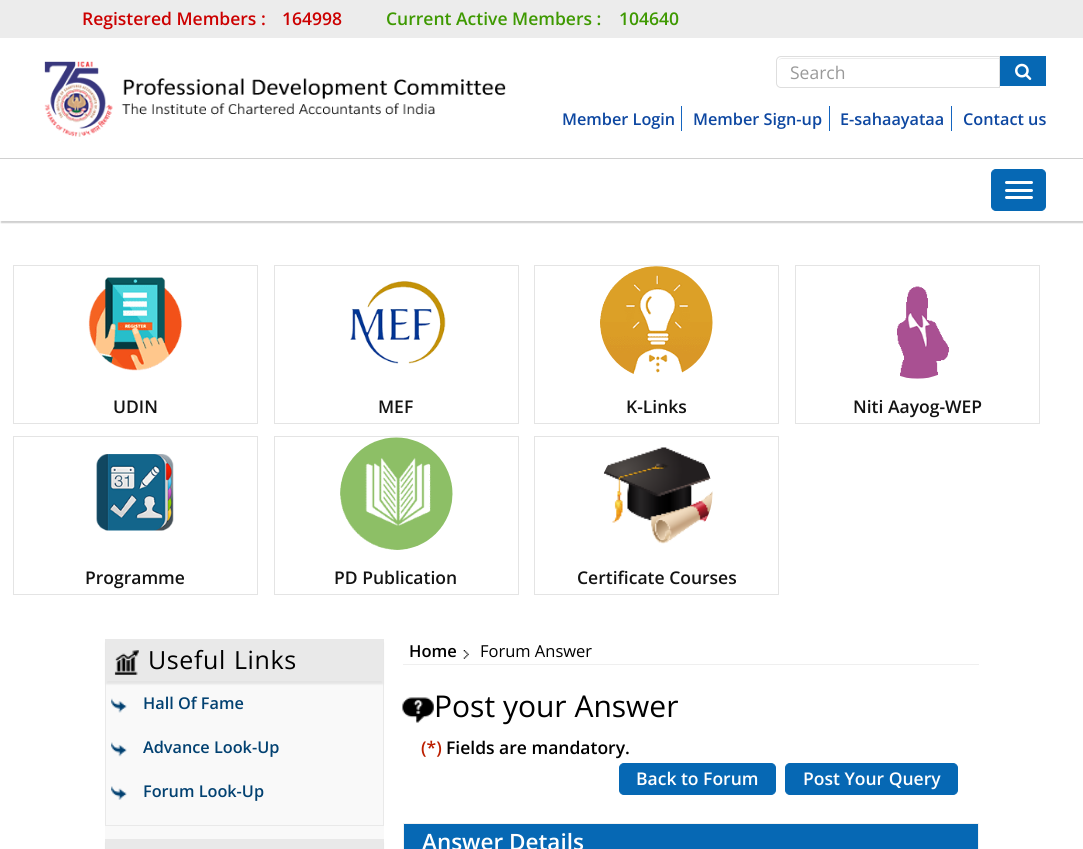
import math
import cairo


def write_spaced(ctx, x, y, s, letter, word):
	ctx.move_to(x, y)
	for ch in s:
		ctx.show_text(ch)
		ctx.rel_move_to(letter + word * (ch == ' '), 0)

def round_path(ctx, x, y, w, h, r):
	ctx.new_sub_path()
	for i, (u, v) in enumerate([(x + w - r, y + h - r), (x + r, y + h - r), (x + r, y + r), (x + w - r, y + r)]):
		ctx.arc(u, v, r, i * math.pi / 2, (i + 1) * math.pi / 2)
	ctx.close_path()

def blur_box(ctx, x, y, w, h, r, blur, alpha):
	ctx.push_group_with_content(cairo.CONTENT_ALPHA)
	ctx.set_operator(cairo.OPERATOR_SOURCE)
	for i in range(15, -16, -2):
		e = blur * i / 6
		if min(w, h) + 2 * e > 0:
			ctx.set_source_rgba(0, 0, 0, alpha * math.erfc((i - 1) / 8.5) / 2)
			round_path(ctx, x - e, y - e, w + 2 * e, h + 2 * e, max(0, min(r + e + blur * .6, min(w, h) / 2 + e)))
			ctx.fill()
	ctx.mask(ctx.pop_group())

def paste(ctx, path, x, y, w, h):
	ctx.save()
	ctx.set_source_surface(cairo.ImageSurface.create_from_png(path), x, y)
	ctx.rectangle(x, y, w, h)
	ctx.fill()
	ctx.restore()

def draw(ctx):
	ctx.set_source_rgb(1, 1, 1)
	ctx.paint()
	ctx.set_source_rgb(0.925, 0.925, 0.925)
	ctx.rectangle(0, 0, 1083, 38)
	ctx.fill()
	ctx.select_font_face('Open Sans SemiBold')
	ctx.set_font_size(17.5)
	ctx.set_source_rgb(0.8, 0, 0)
	ctx.move_to(82, 25)
	ctx.show_text('Registered Members :')
	ctx.move_to(282, 25)
	ctx.show_text('164998')
	ctx.set_source_rgb(0.243, 0.6, 0.004)
	ctx.move_to(386, 25)
	ctx.show_text('Current Active Members :')
	ctx.move_to(619, 25)
	ctx.show_text('104640')
	paste(ctx, 'media/1.png', 44, 61, 462, 76)
	ctx.set_source_rgb(0.925, 0.925, 0.925)
	ctx.new_path()
	ctx.move_to(781, 59)
	ctx.line_to(999, 59)
	ctx.line_to(999, 58)
	ctx.line_to(782, 58)
	ctx.curve_to(781, 58, 779, 59, 779, 60)
	ctx.close_path()
	ctx.fill()
	ctx.new_path()
	ctx.move_to(781, 56.5)
	ctx.line_to(999.5, 56.5)
	ctx.line_to(999.5, 87.5)
	ctx.line_to(781, 87.5)
	ctx.curve_to(778.5, 87.5, 776.5, 85.5, 776.5, 83)
	ctx.line_to(776.5, 61)
	ctx.curve_to(776.5, 58.5, 778.5, 56.5, 781, 56.5)
	ctx.close_path()
	ctx.set_source_rgb(0.871, 0.871, 0.871)
	ctx.set_line_width(1)
	ctx.stroke()
	ctx.select_font_face('Open Sans')
	ctx.set_source_rgb(0.6, 0.6, 0.6)
	ctx.move_to(790, 79)
	ctx.show_text('Search')
	ctx.set_source_rgb(0.024, 0.408, 0.706)
	ctx.rectangle(1000, 56, 46, 30)
	ctx.fill()
	paste(ctx, 'media/2.png', 1015, 63, 17, 17)
	ctx.set_source_rgb(0.082, 0.396, 0.753)
	ctx.rectangle(681, 106, 1, 25)
	ctx.fill()
	ctx.select_font_face('Open Sans SemiBold')
	ctx.set_font_size(16.25)
	ctx.set_source_rgb(0.051, 0.278, 0.631)
	ctx.move_to(562, 125)
	ctx.show_text('Member Login')
	ctx.set_source_rgb(0.082, 0.396, 0.753)
	ctx.rectangle(829, 106, 1, 25)
	ctx.fill()
	ctx.set_source_rgb(0.051, 0.278, 0.631)
	ctx.move_to(693, 125)
	ctx.show_text('Member Sign-up')
	ctx.set_source_rgb(0.082, 0.396, 0.753)
	ctx.rectangle(951, 106, 1, 25)
	ctx.fill()
	ctx.set_source_rgb(0.051, 0.278, 0.631)
	ctx.move_to(840, 125)
	ctx.show_text('E-sahaayataa')
	ctx.move_to(963, 125)
	ctx.show_text('Contact us')
	ctx.save()
	ctx.rectangle(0, 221, 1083, 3)
	ctx.clip()
	ctx.set_source_rgb(0.816, 0.816, 0.816)
	blur_box(ctx, 1, 159, 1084, 64, 0, 0.5, 1)
	ctx.restore()
	ctx.set_source_rgb(0.816, 0.816, 0.816)
	ctx.rectangle(0, 158, 1083, 1)
	ctx.fill()
	ctx.set_source_rgb(0.024, 0.408, 0.706)
	round_path(ctx, 991.5, 169.5, 54, 41, 4.5)
	ctx.fill_preserve()
	ctx.stroke()
	ctx.set_source_rgb(1, 1, 1)
	round_path(ctx, 1005, 181, 28, 3, 1.5)
	ctx.fill()
	round_path(ctx, 1005, 189, 28, 3, 1.5)
	ctx.fill()
	round_path(ctx, 1005, 196, 28, 3, 1.5)
	ctx.fill()
	ctx.rectangle(13.5, 265.5, 244, 158)
	ctx.set_source_rgb(0.894, 0.894, 0.894)
	ctx.stroke()
	paste(ctx, 'media/3.png', 88, 277, 94, 94)
	ctx.set_font_size(17.5)
	ctx.set_source_rgb(0.075, 0.075, 0.075)
	ctx.move_to(113, 413)
	ctx.show_text('UDIN')
	ctx.rectangle(274.5, 265.5, 244, 158)
	ctx.set_source_rgb(0.894, 0.894, 0.894)
	ctx.stroke()
	paste(ctx, 'media/4.png', 350, 281, 96, 83)
	ctx.set_source_rgb(0.075, 0.075, 0.075)
	ctx.move_to(378, 413)
	ctx.show_text('MEF')
	ctx.rectangle(534.5, 265.5, 244, 158)
	ctx.set_source_rgb(0.894, 0.894, 0.894)
	ctx.stroke()
	paste(ctx, 'media/5.png', 600, 266, 113, 108)
	ctx.set_source_rgb(0.075, 0.075, 0.075)
	ctx.move_to(626, 413)
	ctx.show_text('K-Links')
	ctx.rectangle(795.5, 265.5, 244, 158)
	ctx.set_source_rgb(0.894, 0.894, 0.894)
	ctx.stroke()
	paste(ctx, 'media/6.png', 897, 286, 52, 93)
	ctx.set_source_rgb(0.075, 0.075, 0.075)
	ctx.move_to(853, 413)
	ctx.show_text('Niti Aayog-WEP')
	ctx.rectangle(13.5, 436.5, 244, 158)
	ctx.set_source_rgb(0.894, 0.894, 0.894)
	ctx.stroke()
	paste(ctx, 'media/7.png', 96, 454, 78, 77)
	ctx.set_source_rgb(0.075, 0.075, 0.075)
	ctx.move_to(85, 584)
	ctx.show_text('Programme')
	ctx.rectangle(274.5, 436.5, 244, 158)
	ctx.set_source_rgb(0.894, 0.894, 0.894)
	ctx.stroke()
	paste(ctx, 'media/8.png', 340, 437, 113, 113)
	ctx.set_source_rgb(0.075, 0.075, 0.075)
	ctx.move_to(334, 584)
	ctx.show_text('PD Publication')
	ctx.rectangle(534.5, 436.5, 244, 158)
	ctx.set_source_rgb(0.894, 0.894, 0.894)
	ctx.stroke()
	paste(ctx, 'media/9.png', 603, 447, 110, 97)
	ctx.set_source_rgb(0.075, 0.075, 0.075)
	ctx.move_to(577, 584)
	ctx.show_text('Certificate Courses')
	ctx.set_source_rgb(0.973, 0.973, 0.973)
	ctx.rectangle(105, 681, 279, 158)
	ctx.fill()
	ctx.rectangle(105.5, 639.5, 278, 186)
	ctx.set_source_rgb(0.914, 0.914, 0.914)
	ctx.stroke()
	ctx.set_source_rgb(0.89, 0.89, 0.89)
	blur_box(ctx, 106, 643, 277, 41, 0, 1, 1)
	ctx.set_source_rgb(0.914, 0.914, 0.914)
	ctx.rectangle(106, 640, 277, 41)
	ctx.fill()
	paste(ctx, 'media/10.png', 114, 650, 25, 25)
	ctx.select_font_face('Open Sans')
	ctx.set_font_size(25)
	ctx.set_source_rgb(0, 0, 0)
	write_spaced(ctx, 148, 669, 'Useful Links', 0.6, 1)
	paste(ctx, 'media/11.png', 111, 698, 16, 15)
	ctx.select_font_face('Open Sans SemiBold')
	ctx.set_font_size(16.25)
	ctx.set_source_rgb(0.008, 0.255, 0.443)
	ctx.move_to(143, 709)
	ctx.show_text('Hall Of Fame')
	paste(ctx, 'media/12.png', 111, 742, 16, 15)
	ctx.move_to(143, 753)
	ctx.show_text('Advance Look-Up')
	paste(ctx, 'media/13.png', 111, 786, 16, 14)
	ctx.move_to(143, 797)
	ctx.show_text('Forum Look-Up')
	ctx.rectangle(105.5, 839.5, 278, 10)
	ctx.set_source_rgb(0.914, 0.914, 0.914)
	ctx.stroke()
	ctx.set_source_rgb(0.89, 0.89, 0.89)
	blur_box(ctx, 106, 843, 277, 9, 0, 1, 1)
	ctx.set_source_rgb(0.914, 0.914, 0.914)
	ctx.rectangle(106, 840, 277, 9)
	ctx.fill()
	ctx.set_source_rgb(0.937, 0.937, 0.937)
	ctx.rectangle(403, 664, 576, 1)
	ctx.fill()
	paste(ctx, 'media/14.png', 463, 650, 6, 9)
	ctx.set_font_size(16.5)
	ctx.set_source_rgb(0, 0, 0)
	ctx.move_to(409, 657)
	ctx.show_text('Home')
	ctx.select_font_face('Open Sans')
	ctx.move_to(480, 657)
	ctx.show_text('Forum Answer')
	paste(ctx, 'media/15.png', 402, 697, 32, 26)
	ctx.set_font_size(30)
	ctx.move_to(434, 717)
	ctx.show_text('Post your Answer')
	ctx.select_font_face('Open Sans SemiBold')
	ctx.set_font_size(17.5)
	ctx.set_source_rgb(0.737, 0.122, 0)
	ctx.move_to(421, 754)
	ctx.show_text('(*)')
	ctx.set_source_rgb(0, 0, 0)
	ctx.move_to(446, 754)
	ctx.show_text('Fields are mandatory.')
	ctx.set_source_rgb(0.024, 0.408, 0.706)
	round_path(ctx, 619.5, 763.5, 156, 31, 4.5)
	ctx.fill_preserve()
	ctx.stroke()
	ctx.set_source_rgb(1, 1, 1)
	ctx.move_to(636, 785)
	ctx.show_text('Back to Forum')
	ctx.set_source_rgb(0.024, 0.408, 0.706)
	round_path(ctx, 785.5, 763.5, 172, 31, 4.5)
	ctx.fill_preserve()
	ctx.stroke()
	ctx.set_source_rgb(1, 1, 1)
	ctx.move_to(803, 785)
	ctx.show_text('Post Your Query')
	ctx.rectangle(403.5, 823.5, 575, 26)
	ctx.set_source_rgb(0.949, 0.949, 0.949)
	ctx.stroke()
	ctx.set_source_rgb(0.024, 0.408, 0.706)
	ctx.rectangle(404, 824, 574, 25)
	ctx.fill()
	ctx.set_font_size(22.5)
	ctx.set_source_rgb(1, 1, 1)
	ctx.move_to(422, 850)
	ctx.show_text('Answer Details')


surface = cairo.ImageSurface(cairo.FORMAT_RGB24, 1083, 849)
ctx = cairo.Context(surface)
options = cairo.FontOptions()
options.set_hint_metrics(cairo.HINT_METRICS_OFF)
options.set_hint_style(cairo.HINT_STYLE_NONE)
ctx.set_font_options(options)
ctx.set_miter_limit(4)
draw(ctx)
surface.write_to_png('image.png')
